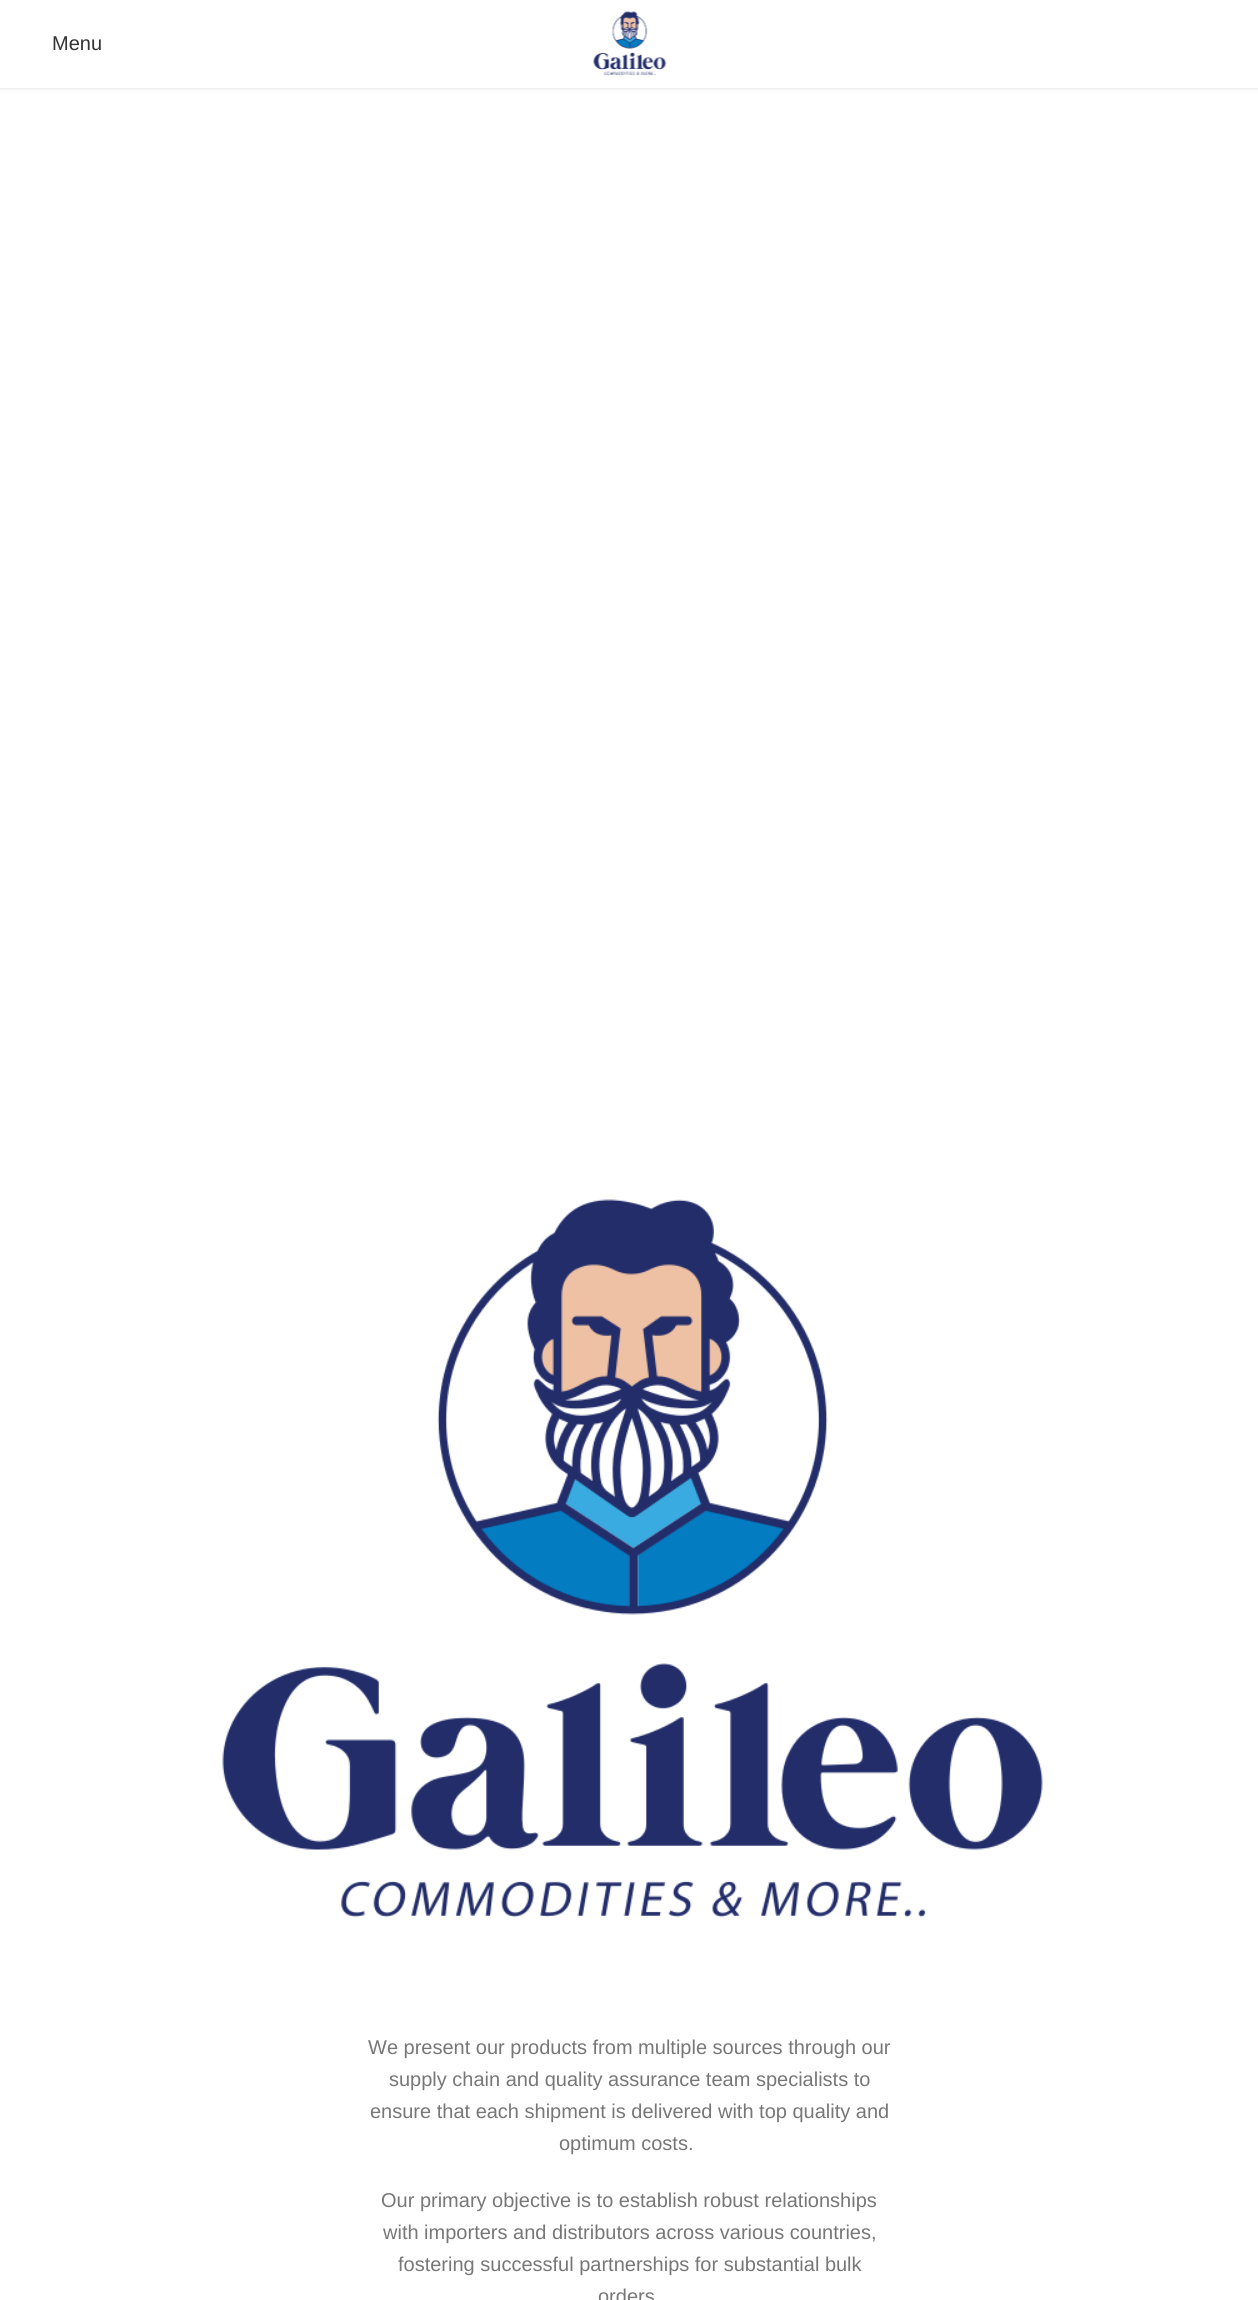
import math
import cairo


def round_path(ctx, x, y, w, h, r):
	ctx.new_sub_path()
	for i, (u, v) in enumerate([(x + w - r, y + h - r), (x + r, y + h - r), (x + r, y + r), (x + w - r, y + r)]):
		ctx.arc(u, v, r, i * math.pi / 2, (i + 1) * math.pi / 2)
	ctx.close_path()

def blur_box(ctx, x, y, w, h, r, blur, alpha):
	ctx.push_group_with_content(cairo.CONTENT_ALPHA)
	ctx.set_operator(cairo.OPERATOR_SOURCE)
	for i in range(15, -16, -2):
		e = blur * i / 6
		if min(w, h) + 2 * e > 0:
			ctx.set_source_rgba(0, 0, 0, alpha * math.erfc((i - 1) / 8.5) / 2)
			round_path(ctx, x - e, y - e, w + 2 * e, h + 2 * e, max(0, min(r + e + blur * .6, min(w, h) / 2 + e)))
			ctx.fill()
	ctx.mask(ctx.pop_group())

def paste(ctx, path, x, y, w, h):
	ctx.save()
	ctx.set_source_surface(cairo.ImageSurface.create_from_png(path), x, y)
	ctx.rectangle(x, y, w, h)
	ctx.fill()
	ctx.restore()

def draw(ctx):
	ctx.set_source_rgb(1, 1, 1)
	ctx.paint()
	ctx.set_source_rgb(0, 0, 0)
	blur_box(ctx, 0, 1, 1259, 88, 0, 2, 0.1)
	ctx.set_source_rgb(1, 1, 1)
	ctx.rectangle(0, 0, 1258, 88)
	ctx.fill()
	ctx.select_font_face('Liberation Sans')
	ctx.set_font_size(20)
	ctx.set_source_rgb(0.2, 0.2, 0.2)
	ctx.move_to(52, 50)
	ctx.show_text('Menu')
	paste(ctx, 'media/1.png', 593, 11, 74, 65)
	paste(ctx, 'media/2.png', 222, 1199, 821, 719)
	ctx.set_source_rgb(0.467, 0.467, 0.467)
	for x, y, s in [
		(368, 2054, 'We present our products from multiple sources through our'),
		(389, 2086, 'supply chain and quality assurance team specialists to'),
		(370, 2118, 'ensure that each shipment is delivered with top quality and'),
		(559, 2150, 'optimum costs.'),
		(381, 2207, 'Our primary objective is to establish robust relationships'),
		(383, 2239, 'with importers and distributors across various countries,'),
		(398, 2271, 'fostering successful partnerships for substantial bulk'),
		(598, 2303, 'orders'),
	]:
		ctx.move_to(x, y)
		ctx.show_text(s)


surface = cairo.ImageSurface(cairo.FORMAT_RGB24, 1258, 2300)
ctx = cairo.Context(surface)
options = cairo.FontOptions()
options.set_hint_metrics(cairo.HINT_METRICS_OFF)
options.set_hint_style(cairo.HINT_STYLE_NONE)
ctx.set_font_options(options)
ctx.set_miter_limit(4)
draw(ctx)
surface.write_to_png('image.png')
